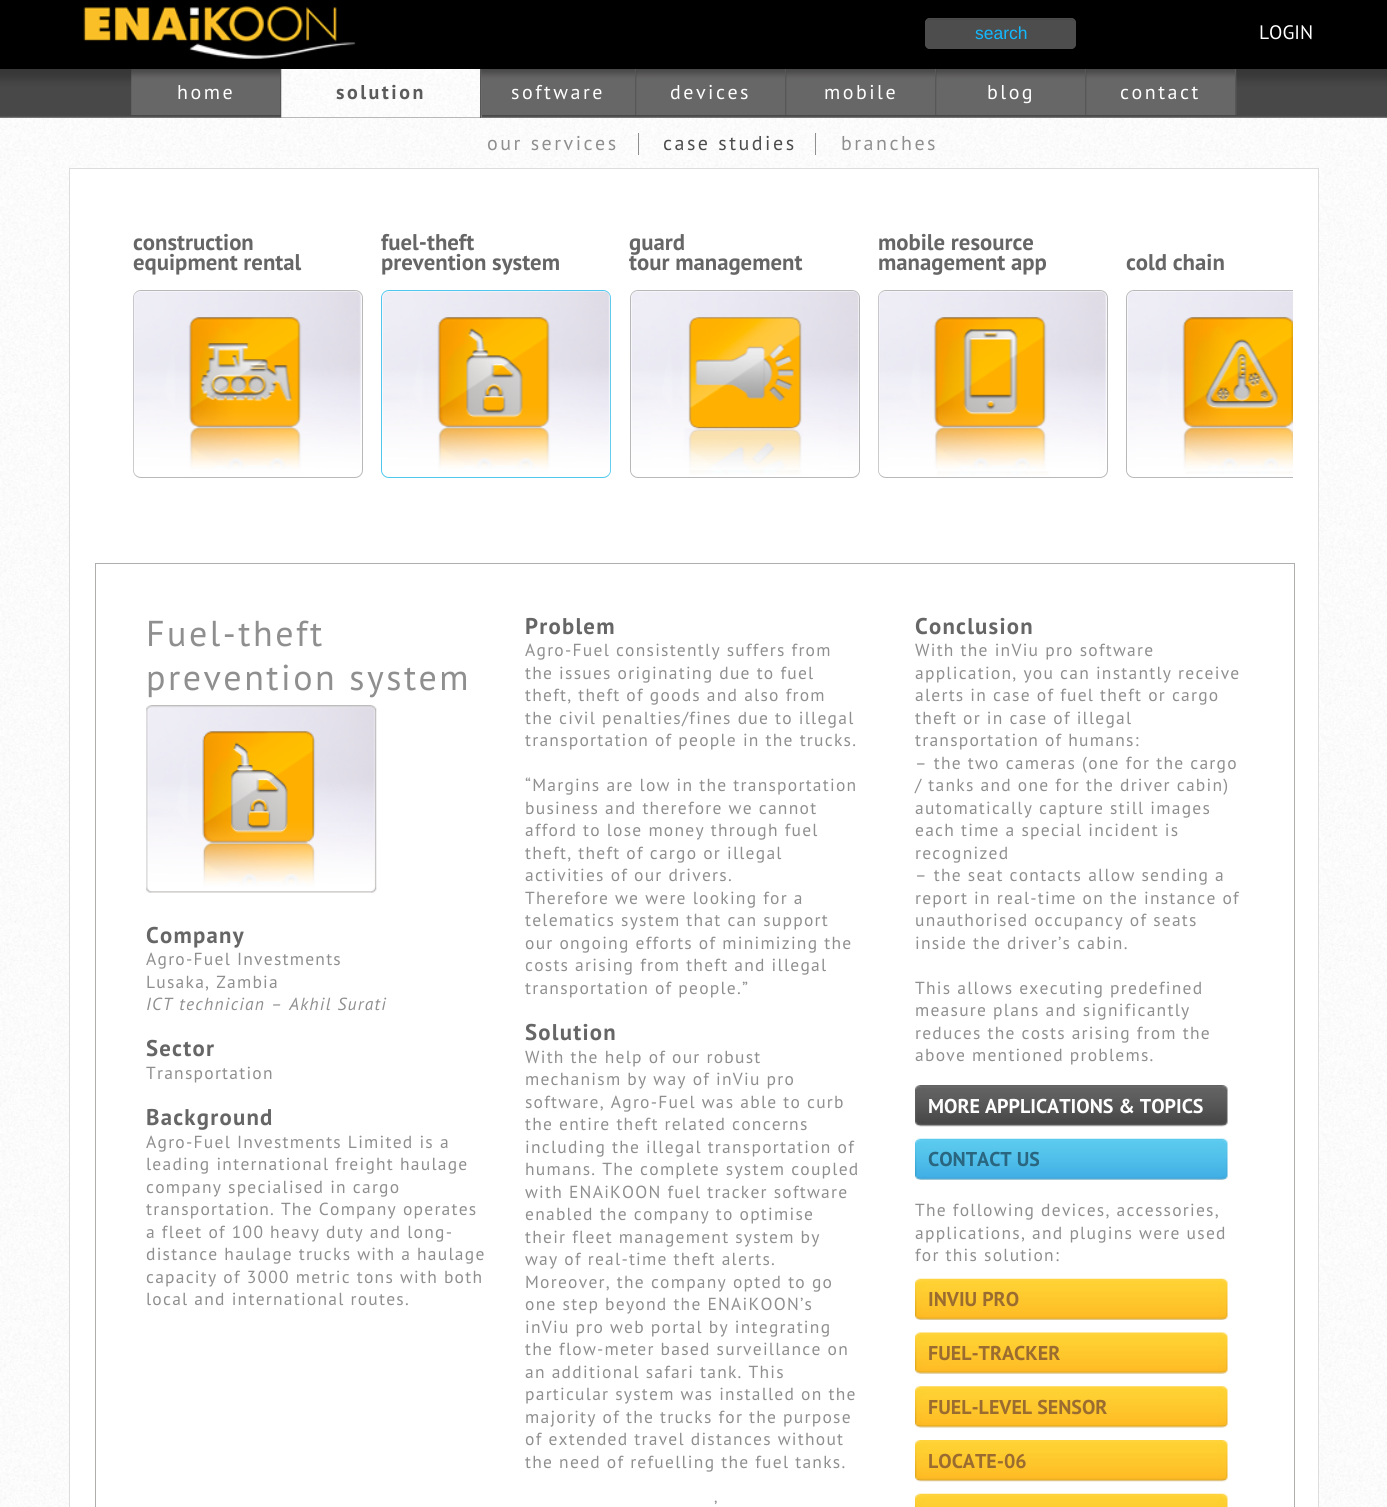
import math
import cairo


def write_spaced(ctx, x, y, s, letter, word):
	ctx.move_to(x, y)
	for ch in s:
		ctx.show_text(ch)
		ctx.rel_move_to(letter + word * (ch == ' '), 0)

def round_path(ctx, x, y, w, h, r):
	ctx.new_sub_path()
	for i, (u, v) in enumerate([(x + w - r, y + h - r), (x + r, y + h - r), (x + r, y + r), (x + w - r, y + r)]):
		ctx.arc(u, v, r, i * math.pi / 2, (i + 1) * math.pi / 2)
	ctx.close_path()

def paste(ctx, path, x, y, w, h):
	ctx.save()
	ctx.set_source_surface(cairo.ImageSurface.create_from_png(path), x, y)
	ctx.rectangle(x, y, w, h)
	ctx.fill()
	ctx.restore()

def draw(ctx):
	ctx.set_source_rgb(1, 1, 1)
	ctx.paint()
	paste(ctx, 'media/1.png', 0, 116, 1387, 1391)
	paste(ctx, 'media/3.png', 0, 69, 1387, 49)
	paste(ctx, 'media/5.png', 131, 69, 151, 46)
	paste(ctx, 'media/4.png', 281, 69, 201, 49)
	ctx.set_source_rgb(0.345, 0.341, 0.341)
	ctx.rectangle(480, 66, 1, 52)
	ctx.fill()
	ctx.rectangle(280, 66, 1, 49)
	ctx.fill()
	paste(ctx, 'media/6.png', 481, 69, 156, 46)
	ctx.rectangle(635, 66, 1, 49)
	ctx.fill()
	paste(ctx, 'media/7.png', 636, 69, 151, 46)
	ctx.rectangle(785, 66, 1, 49)
	ctx.fill()
	paste(ctx, 'media/8.png', 786, 69, 151, 46)
	ctx.rectangle(935, 66, 1, 49)
	ctx.fill()
	paste(ctx, 'media/8.png', 936, 69, 151, 46)
	ctx.rectangle(1085, 66, 1, 49)
	ctx.fill()
	paste(ctx, 'media/9.png', 1086, 69, 151, 46)
	ctx.rectangle(1235, 66, 1, 49)
	ctx.fill()
	ctx.set_source_rgb(0, 0, 0)
	ctx.rectangle(0, 0, 1387, 69)
	ctx.fill()
	paste(ctx, 'media/2.png', 83, 6, 273, 53)
	ctx.set_source_rgb(0.302, 0.302, 0.302)
	round_path(ctx, 925, 18, 151, 31, 5)
	ctx.fill()
	ctx.set_source_rgb(0.278, 0.278, 0.278)
	ctx.new_path()
	ctx.move_to(930, 20)
	ctx.line_to(1071, 20)
	ctx.curve_to(1073, 20, 1075, 22, 1075, 24)
	ctx.curve_to(1075, 21, 1074, 19, 1071, 19)
	ctx.line_to(929, 19)
	ctx.curve_to(927, 20, 926, 22, 926, 24)
	ctx.curve_to(926, 22, 928, 20, 930, 20)
	ctx.close_path()
	ctx.fill()
	round_path(ctx, 925.5, 18.5, 150, 30, 4.5)
	ctx.set_source_rgb(0.302, 0.302, 0.302)
	ctx.set_line_width(1)
	ctx.stroke()
	ctx.select_font_face('Liberation Sans')
	ctx.set_font_size(17.5)
	ctx.set_source_rgb(0.071, 0.725, 1)
	ctx.move_to(975, 39)
	ctx.show_text('search')
	ctx.select_font_face('PT Sans')
	ctx.set_font_size(19.5)
	ctx.set_source_rgb(1, 1, 1)
	ctx.move_to(1259, 39)
	ctx.show_text('LOGIN')
	ctx.select_font_face('PT Sans', cairo.FONT_SLANT_NORMAL, cairo.FONT_WEIGHT_BOLD)
	ctx.set_font_size(20)
	ctx.set_source_rgb(0.357, 0.357, 0.357)
	write_spaced(ctx, 336, 99, 'solution', 2.5, 0)
	ctx.set_source_rgb(0.561, 0.561, 0.561)
	ctx.rectangle(638, 133, 1, 22)
	ctx.fill()
	ctx.select_font_face('PT Sans')
	write_spaced(ctx, 487, 150, 'our services', 2.5, 0)
	ctx.rectangle(815, 133, 1, 22)
	ctx.fill()
	ctx.set_source_rgb(0.298, 0.298, 0.298)
	write_spaced(ctx, 663, 150, 'case studies', 2.5, 0)
	ctx.set_source_rgb(0.561, 0.561, 0.561)
	write_spaced(ctx, 841, 150, 'branches', 2.5, 0)
	ctx.set_source_rgb(1, 1, 1)
	for x, y, s in [
		(177, 99, 'home'),
		(511, 99, 'software'),
		(670, 99, 'devices'),
		(824, 99, 'mobile'),
		(987, 99, 'blog'),
		(1120, 99, 'contact'),
	]:
		write_spaced(ctx, x, y, s, 2.5, 0)
	ctx.rectangle(69.5, 168.5, 1249, 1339)
	ctx.fill_preserve()
	ctx.set_source_rgb(0.867, 0.867, 0.867)
	ctx.stroke()
	ctx.select_font_face('PT Sans', cairo.FONT_SLANT_NORMAL, cairo.FONT_WEIGHT_BOLD)
	ctx.set_font_size(22.75)
	ctx.set_source_rgb(0.4, 0.4, 0.4)
	ctx.move_to(133, 250)
	ctx.show_text('construction')
	ctx.move_to(133, 270)
	ctx.show_text('equipment rental')
	round_path(ctx, 133.5, 290.5, 229, 187, 7.5)
	ctx.set_source_rgb(0.725, 0.722, 0.722)
	ctx.stroke()
	paste(ctx, 'media/10.png', 133, 291, 229, 185)
	ctx.set_source_rgb(0.4, 0.4, 0.4)
	ctx.move_to(381, 250)
	ctx.show_text('fuel-theft')
	ctx.move_to(381, 270)
	ctx.show_text('prevention system')
	round_path(ctx, 381.5, 290.5, 229, 187, 7.5)
	ctx.set_source_rgb(0.302, 0.78, 0.929)
	ctx.stroke()
	paste(ctx, 'media/11.png', 382, 291, 229, 185)
	ctx.set_source_rgb(0.4, 0.4, 0.4)
	ctx.move_to(629, 250)
	ctx.show_text('guard')
	ctx.move_to(629, 270)
	ctx.show_text('tour management')
	round_path(ctx, 630.5, 290.5, 229, 187, 7.5)
	ctx.set_source_rgb(0.725, 0.722, 0.722)
	ctx.stroke()
	paste(ctx, 'media/12.png', 631, 291, 228, 184)
	ctx.set_source_rgb(0.4, 0.4, 0.4)
	ctx.move_to(878, 250)
	ctx.show_text('mobile resource')
	ctx.move_to(878, 270)
	ctx.show_text('management app')
	round_path(ctx, 878.5, 290.5, 229, 187, 7.5)
	ctx.set_source_rgb(0.725, 0.722, 0.722)
	ctx.stroke()
	paste(ctx, 'media/13.png', 878, 291, 229, 185)
	ctx.set_source_rgb(0.4, 0.4, 0.4)
	ctx.move_to(1126, 270)
	ctx.show_text('cold chain')
	ctx.save()
	ctx.rectangle(95, 231, 1198, 269)
	ctx.clip()
	round_path(ctx, 1126.5, 290.5, 229, 187, 7.5)
	ctx.set_source_rgb(0.725, 0.722, 0.722)
	ctx.stroke()
	ctx.restore()
	paste(ctx, 'media/14.png', 1127, 291, 166, 183)
	ctx.rectangle(95.5, 563.5, 1199, 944)
	ctx.set_source_rgb(0.686, 0.682, 0.678)
	ctx.stroke()
	ctx.select_font_face('PT Sans')
	ctx.set_font_size(36)
	ctx.set_source_rgb(0.561, 0.561, 0.561)
	write_spaced(ctx, 146, 646, 'Fuel-theft', 2.5, 0)
	write_spaced(ctx, 146, 690, 'prevention system', 2.5, 0)
	paste(ctx, 'media/15.png', 146, 705, 231, 188)
	ctx.select_font_face('PT Sans', cairo.FONT_SLANT_NORMAL, cairo.FONT_WEIGHT_BOLD)
	ctx.set_font_size(22.75)
	ctx.set_source_rgb(0.4, 0.4, 0.4)
	write_spaced(ctx, 146, 943, 'Company', 1.25, 0)
	ctx.select_font_face('PT Sans')
	ctx.set_font_size(17.5)
	ctx.set_source_rgb(0.561, 0.561, 0.561)
	write_spaced(ctx, 146, 965, 'Agro-Fuel Investments', 1.25, 0)
	write_spaced(ctx, 146, 988, 'Lusaka, Zambia', 1.25, 0)
	ctx.select_font_face('PT Sans', cairo.FONT_SLANT_ITALIC)
	write_spaced(ctx, 146, 1010, 'ICT technician – Akhil Surati', 1.25, 0)
	ctx.select_font_face('PT Sans', cairo.FONT_SLANT_NORMAL, cairo.FONT_WEIGHT_BOLD)
	ctx.set_font_size(22.75)
	ctx.set_source_rgb(0.4, 0.4, 0.4)
	write_spaced(ctx, 146, 1056, 'Sector', 1.25, 0)
	ctx.select_font_face('PT Sans')
	ctx.set_font_size(17.5)
	ctx.set_source_rgb(0.561, 0.561, 0.561)
	write_spaced(ctx, 146, 1079, 'Transportation', 1.25, 0)
	ctx.select_font_face('PT Sans', cairo.FONT_SLANT_NORMAL, cairo.FONT_WEIGHT_BOLD)
	ctx.set_font_size(22.75)
	ctx.set_source_rgb(0.4, 0.4, 0.4)
	write_spaced(ctx, 146, 1125, 'Background', 1.25, 0)
	ctx.select_font_face('PT Sans')
	ctx.set_font_size(17.5)
	ctx.set_source_rgb(0.561, 0.561, 0.561)
	for x, y, s in [
		(146, 1148, 'Agro-Fuel Investments Limited is a'),
		(146, 1170, 'leading international freight haulage'),
		(146, 1193, 'company specialised in cargo'),
		(146, 1215, 'transportation. The Company operates'),
		(146, 1238, 'a fleet of 100 heavy duty and long-'),
		(146, 1260, 'distance haulage trucks with a haulage'),
		(146, 1283, 'capacity of 3000 metric tons with both'),
		(146, 1305, 'local and international routes.'),
	]:
		write_spaced(ctx, x, y, s, 1.25, 0)
	ctx.select_font_face('PT Sans', cairo.FONT_SLANT_NORMAL, cairo.FONT_WEIGHT_BOLD)
	ctx.set_font_size(22.75)
	ctx.set_source_rgb(0.4, 0.4, 0.4)
	write_spaced(ctx, 525, 634, 'Problem', 1.25, 0)
	ctx.select_font_face('PT Sans')
	ctx.set_font_size(17.5)
	ctx.set_source_rgb(0.561, 0.561, 0.561)
	for x, y, s in [
		(525, 656, 'Agro-Fuel consistently suffers from'),
		(525, 679, 'the issues originating due to fuel'),
		(525, 701, 'theft, theft of goods and also from'),
		(525, 724, 'the civil penalties/fines due to illegal'),
		(525, 746, 'transportation of people in the trucks.'),
		(525, 791, '“Margins are low in the transportation'),
		(525, 814, 'business and therefore we cannot'),
		(525, 836, 'afford to lose money through fuel'),
		(525, 859, 'theft, theft of cargo or illegal'),
		(525, 881, 'activities of our drivers.'),
		(525, 904, 'Therefore we were looking for a'),
		(525, 926, 'telematics system that can support'),
		(525, 949, 'our ongoing efforts of minimizing the'),
		(525, 971, 'costs arising from theft and illegal'),
		(525, 994, 'transportation of people.”'),
	]:
		write_spaced(ctx, x, y, s, 1.25, 0)
	ctx.select_font_face('PT Sans', cairo.FONT_SLANT_NORMAL, cairo.FONT_WEIGHT_BOLD)
	ctx.set_font_size(22.75)
	ctx.set_source_rgb(0.4, 0.4, 0.4)
	write_spaced(ctx, 525, 1040, 'Solution', 1.25, 0)
	ctx.select_font_face('PT Sans')
	ctx.set_font_size(17.5)
	ctx.set_source_rgb(0.561, 0.561, 0.561)
	for x, y, s in [
		(525, 1063, 'With the help of our robust'),
		(525, 1085, 'mechanism by way of inViu pro'),
		(525, 1108, 'software, Agro-Fuel was able to curb'),
		(525, 1130, 'the entire theft related concerns'),
		(525, 1153, 'including the illegal transportation of'),
		(525, 1175, 'humans. The complete system coupled'),
		(525, 1198, 'with ENAiKOON fuel tracker software'),
		(525, 1220, 'enabled the company to optimise'),
		(525, 1243, 'their fleet management system by'),
		(525, 1265, 'way of real-time theft alerts.'),
		(525, 1288, 'Moreover, the company opted to go'),
		(525, 1310, 'one step beyond the ENAiKOON’s'),
		(525, 1333, 'inViu pro web portal by integrating'),
		(525, 1355, 'the flow-meter based surveillance on'),
		(525, 1378, 'an additional safari tank. This'),
		(525, 1400, 'particular system was installed on the'),
		(525, 1423, 'majority of the trucks for the purpose'),
		(525, 1445, 'of extended travel distances without'),
		(525, 1468, 'the need of refuelling the fuel tanks.'),
		(714, 1513, '’'),
	]:
		write_spaced(ctx, x, y, s, 1.25, 0)
	ctx.select_font_face('PT Sans', cairo.FONT_SLANT_NORMAL, cairo.FONT_WEIGHT_BOLD)
	ctx.set_font_size(22.75)
	ctx.set_source_rgb(0.4, 0.4, 0.4)
	write_spaced(ctx, 915, 634, 'Conclusion', 1.25, 0)
	ctx.select_font_face('PT Sans')
	ctx.set_font_size(17.5)
	ctx.set_source_rgb(0.561, 0.561, 0.561)
	for x, y, s in [
		(915, 656, 'With the inViu pro software'),
		(915, 679, 'application, you can instantly receive'),
		(915, 701, 'alerts in case of fuel theft or cargo'),
		(915, 724, 'theft or in case of illegal'),
		(915, 746, 'transportation of humans:'),
		(915, 769, '– the two cameras (one for the cargo'),
		(915, 791, '/ tanks and one for the driver cabin)'),
		(915, 814, 'automatically capture still images'),
		(915, 836, 'each time a special incident is'),
		(915, 859, 'recognized'),
		(915, 881, '– the seat contacts allow sending a'),
		(915, 904, 'report in real-time on the instance of'),
		(915, 926, 'unauthorised occupancy of seats'),
		(915, 949, 'inside the driver’s cabin.'),
		(915, 994, 'This allows executing predefined'),
		(915, 1016, 'measure plans and significantly'),
		(915, 1039, 'reduces the costs arising from the'),
		(915, 1061, 'above mentioned problems.'),
	]:
		write_spaced(ctx, x, y, s, 1.25, 0)
	paste(ctx, 'media/16.png', 915, 1085, 313, 42)
	ctx.select_font_face('PT Sans', cairo.FONT_SLANT_NORMAL, cairo.FONT_WEIGHT_BOLD)
	ctx.set_font_size(20)
	ctx.set_source_rgb(1, 1, 1)
	ctx.move_to(928, 1113)
	ctx.show_text('MORE APPLICATIONS & TOPICS')
	paste(ctx, 'media/17.png', 915, 1138, 313, 42)
	ctx.set_source_rgb(0.165, 0.4, 0.498)
	ctx.move_to(928, 1166)
	ctx.show_text('CONTACT US')
	ctx.select_font_face('PT Sans')
	ctx.set_font_size(17.5)
	ctx.set_source_rgb(0.561, 0.561, 0.561)
	for x, y, s in [
		(915, 1216, 'The following devices, accessories,'),
		(915, 1239, 'applications, and plugins were used'),
		(915, 1261, 'for this solution:'),
	]:
		write_spaced(ctx, x, y, s, 1.25, 0)
	paste(ctx, 'media/18.png', 915, 1278, 313, 42)
	ctx.select_font_face('PT Sans', cairo.FONT_SLANT_NORMAL, cairo.FONT_WEIGHT_BOLD)
	ctx.set_font_size(20)
	ctx.set_source_rgb(0.608, 0.424, 0.188)
	ctx.move_to(928, 1306)
	ctx.show_text('INVIU PRO')
	paste(ctx, 'media/19.png', 915, 1332, 313, 42)
	ctx.move_to(928, 1360)
	ctx.show_text('FUEL-TRACKER')
	paste(ctx, 'media/20.png', 915, 1386, 313, 42)
	ctx.move_to(928, 1414)
	ctx.show_text('FUEL-LEVEL SENSOR')
	paste(ctx, 'media/21.png', 915, 1440, 313, 42)
	ctx.move_to(928, 1468)
	ctx.show_text('LOCATE-06')
	paste(ctx, 'media/22.png', 915, 1493, 313, 14)


surface = cairo.ImageSurface(cairo.FORMAT_RGB24, 1387, 1507)
ctx = cairo.Context(surface)
options = cairo.FontOptions()
options.set_hint_metrics(cairo.HINT_METRICS_OFF)
options.set_hint_style(cairo.HINT_STYLE_NONE)
ctx.set_font_options(options)
ctx.set_miter_limit(4)
draw(ctx)
surface.write_to_png('image.png')
